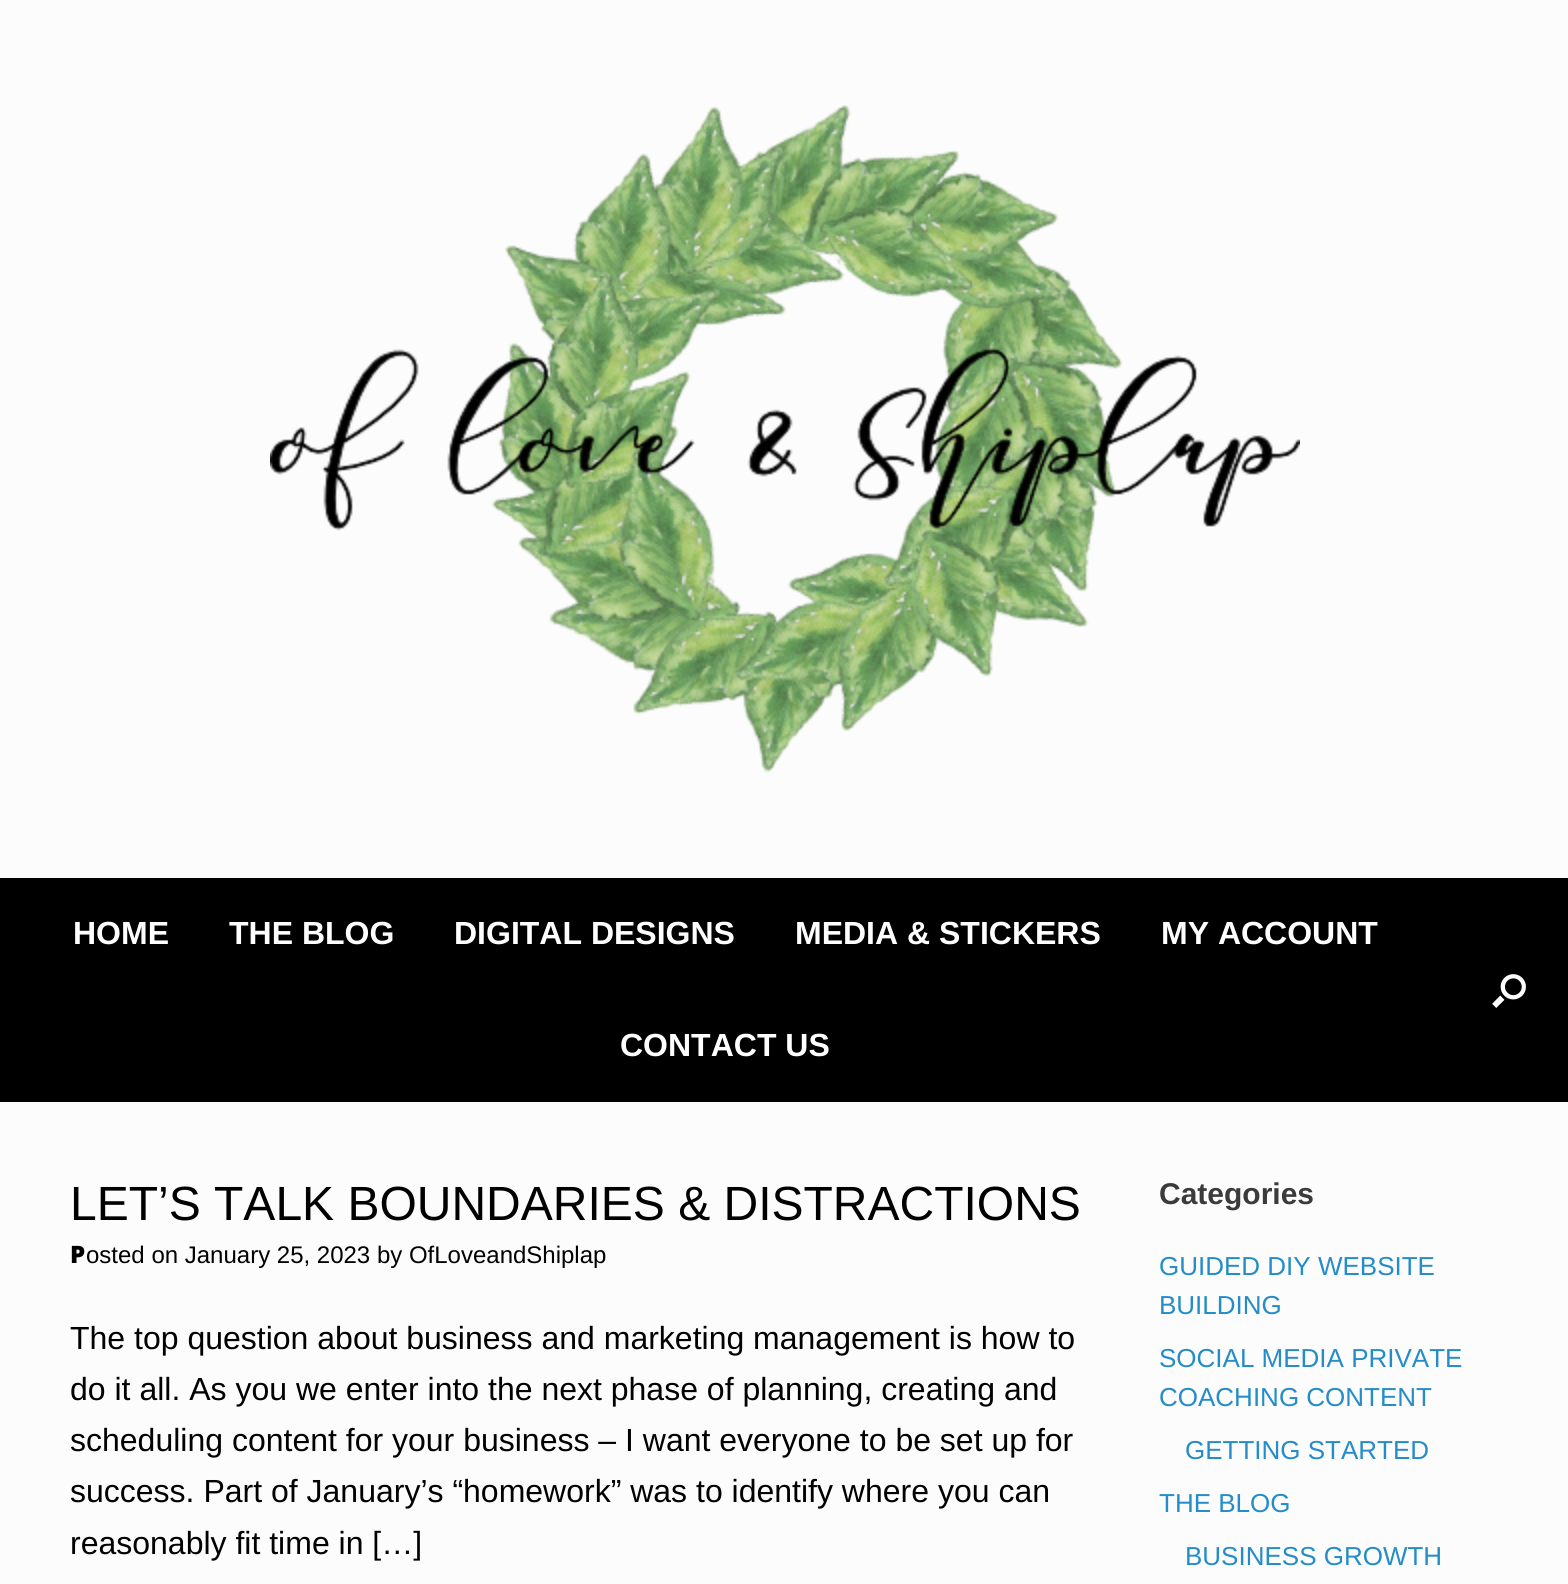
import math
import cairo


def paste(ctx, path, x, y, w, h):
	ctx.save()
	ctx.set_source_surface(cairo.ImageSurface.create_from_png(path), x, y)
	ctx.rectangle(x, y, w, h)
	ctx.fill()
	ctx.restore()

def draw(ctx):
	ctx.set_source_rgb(0.988, 0.988, 0.988)
	ctx.paint()
	paste(ctx, 'media/1.png', 270, 105, 1030, 668)
	ctx.set_source_rgb(0, 0, 0)
	ctx.rectangle(0, 878, 1568, 224)
	ctx.fill()
	ctx.select_font_face('Liberation Sans', cairo.FONT_SLANT_NORMAL, cairo.FONT_WEIGHT_BOLD)
	ctx.set_font_size(32)
	ctx.set_source_rgb(1, 1, 1)
	for x, y, s in [
		(73, 944, 'HOME'),
		(229, 944, 'THE BLOG'),
		(454, 944, 'DIGITAL DESIGNS'),
		(795, 944, 'MEDIA & STICKERS'),
		(1161, 944, 'MY ACCOUNT'),
		(620, 1056, 'CONTACT US'),
	]:
		ctx.move_to(x, y)
		ctx.show_text(s)
	paste(ctx, 'media/2.png', 1492, 974, 34, 34)
	ctx.select_font_face('Liberation Sans')
	ctx.set_font_size(48)
	ctx.set_source_rgb(0, 0, 0)
	ctx.move_to(70, 1220)
	ctx.show_text('LET’S TALK BOUNDARIES & DISTRACTIONS')
	ctx.select_font_face('Noto Sans Black')
	ctx.set_font_size(24)
	ctx.move_to(70, 1263)
	ctx.show_text('P')
	ctx.select_font_face('Liberation Sans')
	ctx.move_to(86, 1263)
	ctx.show_text('osted on January 25, 2023 by OfLoveandShiplap')
	ctx.set_font_size(32)
	for x, y, s in [
		(70, 1349, 'The top question about business and marketing management is how to'),
		(70, 1400, 'do it all. As you we enter into the next phase of planning, creating and'),
		(70, 1451, 'scheduling content for your business – I want everyone to be set up for'),
		(70, 1502, 'success. Part of January’s “homework” was to identify where you can'),
		(70, 1554, 'reasonably fit time in […]'),
	]:
		ctx.move_to(x, y)
		ctx.show_text(s)
	ctx.select_font_face('Liberation Sans', cairo.FONT_SLANT_NORMAL, cairo.FONT_WEIGHT_BOLD)
	ctx.set_font_size(30)
	ctx.set_source_rgb(0.231, 0.231, 0.231)
	ctx.move_to(1159, 1204)
	ctx.show_text('Categories')
	ctx.select_font_face('Liberation Sans')
	ctx.set_font_size(26)
	ctx.set_source_rgb(0.141, 0.549, 0.784)
	for x, y, s in [
		(1159, 1275, 'GUIDED DIY WEBSITE'),
		(1159, 1314, 'BUILDING'),
		(1159, 1367, 'SOCIAL MEDIA PRIVATE'),
		(1159, 1406, 'COACHING CONTENT'),
		(1185, 1459, 'GETTING STARTED'),
		(1159, 1512, 'THE BLOG'),
		(1185, 1565, 'BUSINESS GROWTH'),
	]:
		ctx.move_to(x, y)
		ctx.show_text(s)


surface = cairo.ImageSurface(cairo.FORMAT_RGB24, 1568, 1584)
ctx = cairo.Context(surface)
options = cairo.FontOptions()
options.set_hint_metrics(cairo.HINT_METRICS_OFF)
options.set_hint_style(cairo.HINT_STYLE_NONE)
ctx.set_font_options(options)
ctx.set_miter_limit(4)
draw(ctx)
surface.write_to_png('image.png')
